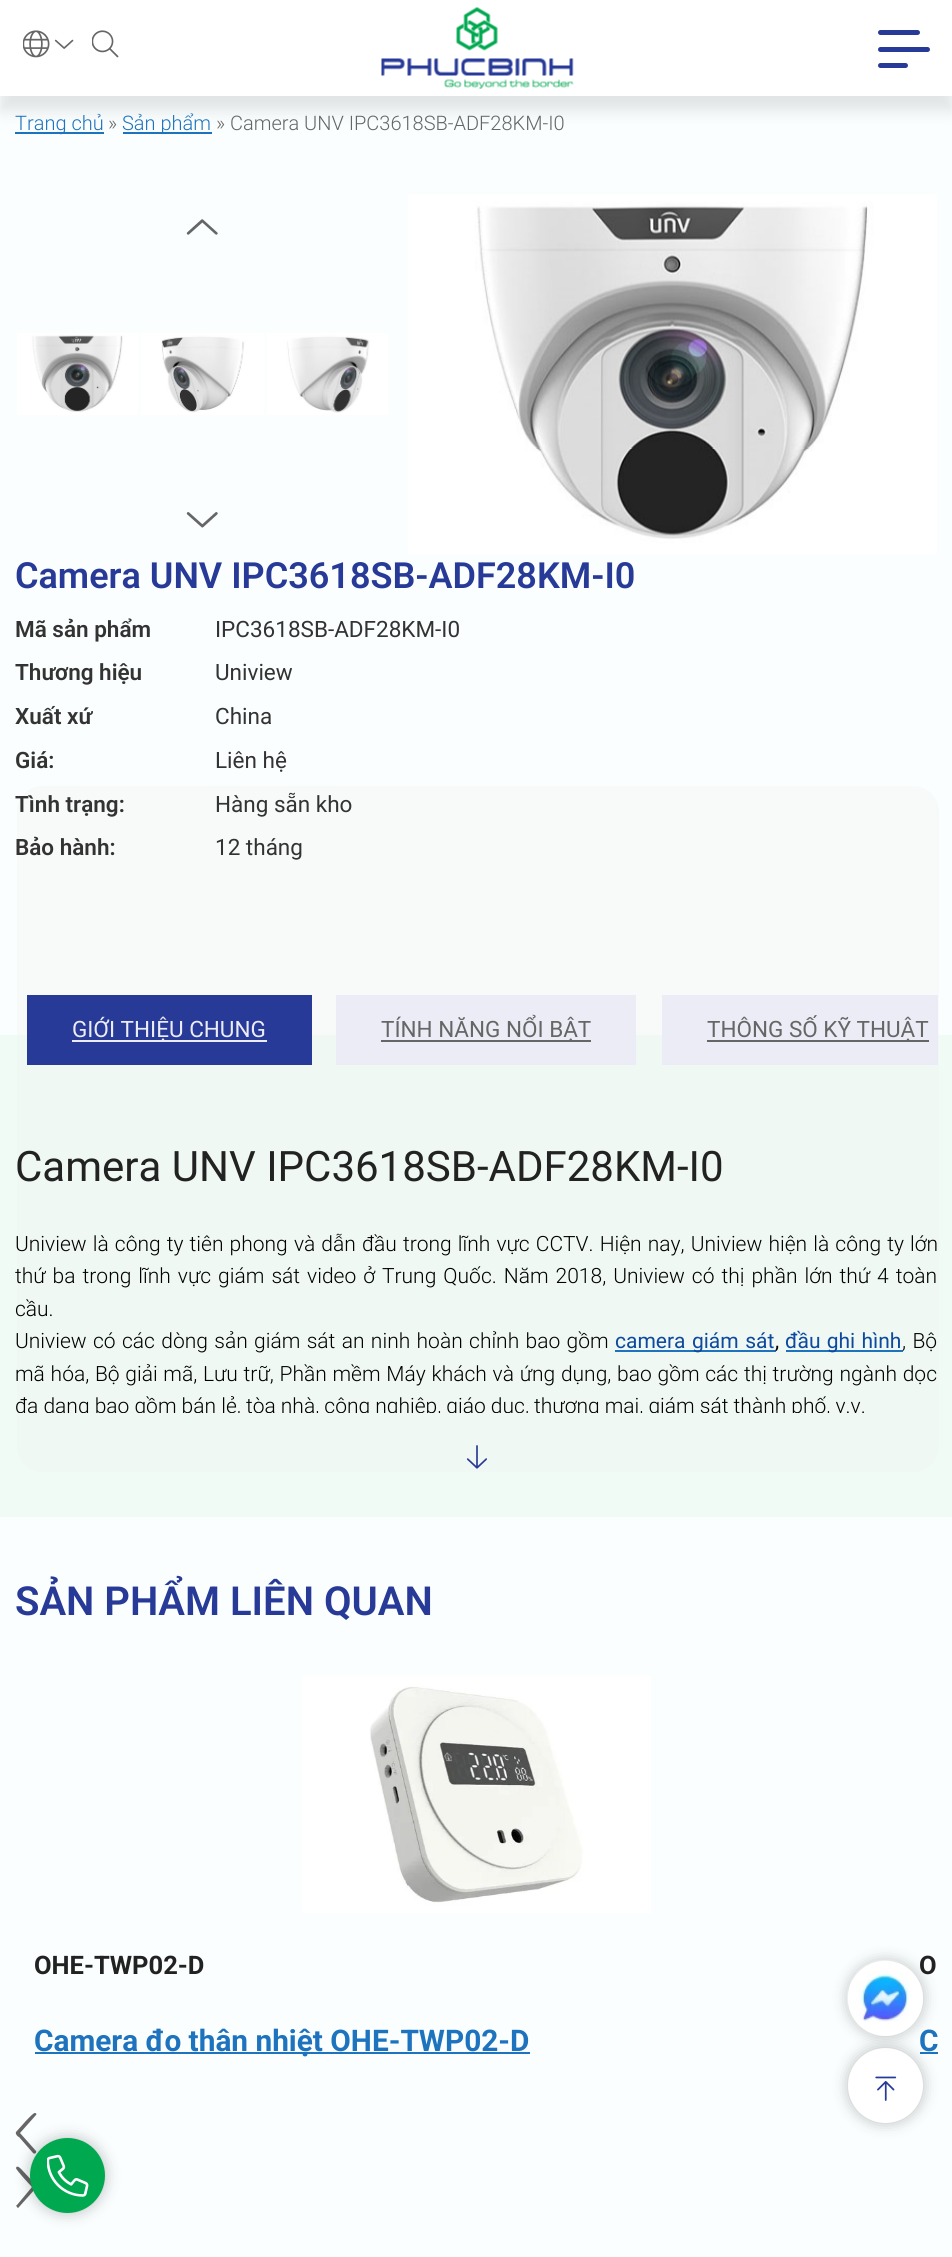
import math
import cairo


def write_spaced(ctx, x, y, s, letter, word):
	ctx.move_to(x, y)
	for ch in s:
		ctx.show_text(ch)
		ctx.rel_move_to(letter + word * (ch == ' '), 0)

def round_path(ctx, x, y, w, h, r):
	ctx.new_sub_path()
	for i, (u, v) in enumerate([(x + w - r, y + h - r), (x + r, y + h - r), (x + r, y + r), (x + w - r, y + r)]):
		ctx.arc(u, v, r, i * math.pi / 2, (i + 1) * math.pi / 2)
	ctx.close_path()

def blur_box(ctx, x, y, w, h, r, blur, alpha):
	ctx.push_group_with_content(cairo.CONTENT_ALPHA)
	ctx.set_operator(cairo.OPERATOR_SOURCE)
	for i in range(15, -16, -2):
		e = blur * i / 6
		if min(w, h) + 2 * e > 0:
			ctx.set_source_rgba(0, 0, 0, alpha * math.erfc((i - 1) / 8.5) / 2)
			round_path(ctx, x - e, y - e, w + 2 * e, h + 2 * e, max(0, min(r + e + blur * .6, min(w, h) / 2 + e)))
			ctx.fill()
	ctx.mask(ctx.pop_group())

def paste(ctx, path, x, y, w, h):
	ctx.save()
	ctx.set_source_surface(cairo.ImageSurface.create_from_png(path), x, y)
	ctx.rectangle(x, y, w, h)
	ctx.fill()
	ctx.restore()

def draw(ctx):
	ctx.set_source_rgb(0.98, 0.996, 0.996)
	ctx.paint()
	ctx.set_source_rgb(0.118, 0.451, 0.745)
	ctx.rectangle(15, 132, 89, 2)
	ctx.fill()
	ctx.rectangle(123, 132, 89, 2)
	ctx.fill()
	ctx.set_source_rgb(0, 0, 0)
	blur_box(ctx, 0, 15, 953, 96, 0, 7.5, 0.1)
	ctx.set_source_rgb(1, 1, 1)
	ctx.rectangle(0, 0, 952, 96)
	ctx.fill()
	paste(ctx, 'media/1.png', 23, 30, 27, 28)
	paste(ctx, 'media/2.png', 54, 39, 20, 10)
	paste(ctx, 'media/3.png', 92, 30, 27, 28)
	paste(ctx, 'media/4.png', 381, 7, 193, 82)
	ctx.set_source_rgb(0.157, 0.227, 0.592)
	round_path(ctx, 878, 30, 42, 5, 2.5)
	ctx.fill()
	round_path(ctx, 878, 47, 52, 5, 2.5)
	ctx.fill()
	round_path(ctx, 878, 63, 30, 5, 2.5)
	ctx.fill()
	ctx.select_font_face('Roboto Light')
	ctx.set_font_size(20)
	ctx.set_source_rgb(0.118, 0.451, 0.745)
	ctx.move_to(15, 130)
	ctx.show_text('Trang chủ')
	ctx.set_source_rgb(0.4, 0.4, 0.4)
	ctx.move_to(108, 130)
	ctx.show_text('»')
	ctx.set_source_rgb(0.118, 0.451, 0.745)
	ctx.move_to(122, 130)
	ctx.show_text('Sản phẩm')
	ctx.set_source_rgb(0.4, 0.4, 0.4)
	ctx.move_to(216, 130)
	ctx.show_text('» Camera UNV IPC3618SB-ADF28KM-I0')
	paste(ctx, 'media/5.png', 186, 219, 32, 16)
	paste(ctx, 'media/6.png', 17, 333, 121, 82)
	paste(ctx, 'media/7.png', 141, 333, 123, 82)
	paste(ctx, 'media/8.png', 267, 333, 121, 82)
	paste(ctx, 'media/9.png', 186, 512, 32, 16)
	paste(ctx, 'media/10.png', 408, 194, 529, 360)
	ctx.select_font_face('Roboto SemiBold')
	ctx.set_font_size(36)
	ctx.set_source_rgb(0.157, 0.227, 0.592)
	ctx.move_to(15, 588)
	ctx.show_text('Camera UNV IPC3618SB-ADF28KM-I0')
	ctx.set_font_size(22.5)
	ctx.set_source_rgb(0.2, 0.2, 0.2)
	ctx.move_to(15, 637)
	ctx.show_text('Mã sản phẩm')
	ctx.select_font_face('Roboto')
	ctx.move_to(215, 637)
	ctx.show_text('IPC3618SB-ADF28KM-I0')
	ctx.select_font_face('Roboto SemiBold')
	ctx.move_to(15, 680)
	ctx.show_text('Thương hiệu')
	ctx.select_font_face('Roboto')
	ctx.move_to(215, 680)
	ctx.show_text('Uniview')
	ctx.select_font_face('Roboto SemiBold')
	ctx.move_to(15, 724)
	ctx.show_text('Xuất xứ')
	ctx.select_font_face('Roboto')
	ctx.move_to(215, 724)
	ctx.show_text('China')
	ctx.select_font_face('Roboto SemiBold')
	ctx.move_to(15, 768)
	ctx.show_text('Giá:')
	ctx.select_font_face('Roboto')
	ctx.move_to(215, 768)
	ctx.show_text('Liên hệ')
	ctx.set_source_rgb(0.969, 0.976, 0.976)
	round_path(ctx, 17, 786, 922, 686, 26)
	ctx.fill()
	ctx.select_font_face('Roboto SemiBold')
	ctx.set_source_rgb(0.2, 0.2, 0.2)
	ctx.move_to(15, 812)
	ctx.show_text('Tình trạng:')
	ctx.select_font_face('Roboto')
	ctx.move_to(215, 812)
	ctx.show_text('Hàng sẵn kho')
	ctx.select_font_face('Roboto SemiBold')
	ctx.move_to(15, 855)
	ctx.show_text('Bảo hành:')
	ctx.select_font_face('Roboto')
	ctx.move_to(215, 855)
	ctx.show_text('12 tháng')
	ctx.set_source_rgba(0.902, 0.969, 0.933, 0.5)
	ctx.rectangle(0, 1035, 952, 482)
	ctx.fill()
	ctx.set_source_rgb(0.157, 0.227, 0.592)
	ctx.rectangle(27, 995, 285, 70)
	ctx.fill()
	ctx.set_source_rgb(0.918, 0.925, 0.961)
	ctx.rectangle(72, 1040, 195, 2)
	ctx.fill()
	ctx.move_to(72, 1037)
	ctx.show_text('GIỚI THIỆU CHUNG')
	ctx.rectangle(336, 995, 300, 70)
	ctx.fill()
	ctx.set_source_rgb(0.4, 0.4, 0.4)
	ctx.rectangle(381, 1040, 210, 2)
	ctx.fill()
	ctx.move_to(381, 1037)
	ctx.show_text('TÍNH NĂNG NỔI BẬT')
	ctx.set_source_rgb(0.918, 0.925, 0.961)
	ctx.rectangle(662, 995, 276, 70)
	ctx.fill()
	ctx.set_source_rgb(0.4, 0.4, 0.4)
	ctx.rectangle(707, 1040, 222, 2)
	ctx.fill()
	ctx.move_to(707, 1037)
	ctx.show_text('THÔNG SỐ KỸ THUẬT')
	ctx.set_font_size(42)
	ctx.set_source_rgb(0.133, 0.133, 0.133)
	ctx.move_to(15, 1181)
	ctx.show_text('Camera UNV IPC3618SB-ADF28KM-I0')
	ctx.select_font_face('Roboto Light')
	ctx.set_font_size(21)
	ctx.set_source_rgb(0, 0, 0)
	write_spaced(ctx, 15, 1251, 'Uniview là công ty tiên phong và dẫn đầu trong lĩnh vực CCTV. Hiện nay, Uniview hiện là công ty lớn', 0, 1)
	write_spaced(ctx, 15, 1283, 'thứ ba trong lĩnh vực giám sát video ở Trung Quốc. Năm 2018, Uniview có thị phần lớn thứ 4 toàn', 0, 1.9)
	ctx.move_to(15, 1316)
	ctx.show_text('cầu.')
	write_spaced(ctx, 15, 1348, 'Uniview có các dòng sản giám sát an ninh hoàn chỉnh bao gồm', 0, 1.25)
	ctx.set_source_rgb(0.118, 0.451, 0.745)
	ctx.rectangle(615, 1350, 161, 2)
	ctx.fill()
	ctx.select_font_face('Roboto')
	ctx.set_source_rgb(0.051, 0.286, 0.62)
	write_spaced(ctx, 615, 1348, 'camera giám sát', 0, 1.25)
	ctx.set_source_rgb(0, 0, 0)
	ctx.move_to(775, 1348)
	ctx.show_text(',')
	ctx.set_source_rgb(0.118, 0.451, 0.745)
	ctx.rectangle(786, 1350, 117, 2)
	ctx.fill()
	ctx.set_source_rgb(0.051, 0.286, 0.62)
	write_spaced(ctx, 785, 1348, 'đầu ghi hình', 0, 1)
	ctx.select_font_face('Roboto Light')
	ctx.set_source_rgb(0, 0, 0)
	write_spaced(ctx, 902, 1348, ', Bộ', 0, 1.25)
	write_spaced(ctx, 15, 1381, 'mã hóa, Bộ giải mã, Lưu trữ, Phần mềm Máy khách và ứng dụng, bao gồm các thị trường ngành dọc', 0, 0.6)
	ctx.save()
	ctx.rectangle(15, 1133, 923, 280)
	ctx.clip()
	ctx.move_to(15, 1413)
	ctx.show_text('đa dạng bao gồm bán lẻ, tòa nhà, công nghiệp, giáo dục, thương mại, giám sát thành phố, v.v.')
	ctx.restore()
	paste(ctx, 'media/11.png', 467, 1445, 20, 24)
	ctx.select_font_face('Roboto SemiBold')
	ctx.set_font_size(40)
	ctx.set_source_rgb(0.157, 0.227, 0.592)
	ctx.move_to(15, 1615)
	ctx.show_text('SẢN PHẨM LIÊN QUAN')
	paste(ctx, 'media/12.png', 302, 1676, 349, 237)
	ctx.select_font_face('Roboto', cairo.FONT_SLANT_NORMAL, cairo.FONT_WEIGHT_BOLD)
	ctx.set_font_size(25.5)
	ctx.set_source_rgb(0.133, 0.133, 0.133)
	ctx.move_to(34, 1974)
	ctx.show_text('OHE-TWP02-D')
	ctx.set_source_rgb(0.118, 0.451, 0.745)
	ctx.rectangle(35, 2052, 495, 2)
	ctx.fill()
	ctx.set_font_size(29.8)
	ctx.move_to(34, 2051)
	ctx.show_text('Camera đo thân nhiệt OHE-TWP02-D')
	ctx.set_font_size(25.5)
	ctx.set_source_rgb(0.133, 0.133, 0.133)
	ctx.move_to(919, 1974)
	ctx.show_text('O')
	ctx.set_font_size(29.8)
	ctx.set_source_rgb(0.118, 0.451, 0.745)
	ctx.move_to(919, 2051)
	ctx.show_text('C')
	ctx.rectangle(920, 2052, 18, 2)
	ctx.fill()
	ctx.set_source_rgb(0.4, 0.4, 0.4)
	ctx.new_path()
	ctx.move_to(36, 2151)
	ctx.curve_to(37, 2152, 35, 2155, 33, 2153)
	ctx.line_to(19, 2137)
	ctx.curve_to(18, 2137, 15, 2134, 16, 2132)
	ctx.curve_to(18, 2130, 33, 2112, 35, 2113)
	ctx.curve_to(36, 2113, 37, 2114, 36, 2115)
	ctx.line_to(20, 2133)
	ctx.close_path()
	ctx.fill()
	ctx.new_path()
	ctx.move_to(36, 2188)
	ctx.line_to(19, 2207)
	ctx.curve_to(19, 2208, 17, 2208, 17, 2207)
	ctx.curve_to(16, 2206, 16, 2205, 17, 2205)
	ctx.line_to(32, 2187)
	ctx.curve_to(30, 2185, 16, 2170, 16, 2168)
	ctx.curve_to(17, 2164, 22, 2170, 22, 2170)
	ctx.line_to(37, 2186)
	ctx.close_path()
	ctx.fill()
	ctx.set_source_rgb(0, 0, 0)
	blur_box(ctx, 848, 2048, 75, 75, 37.5, 7.5, 0.25)
	ctx.set_source_rgb(1, 1, 1)
	ctx.arc(885.5, 2085.5, 37.5, 0, 2 * math.pi)
	ctx.fill()
	ctx.set_source_rgb(0, 0, 0)
	blur_box(ctx, 848, 1961, 75, 75, 37.5, 7.5, 0.25)
	ctx.set_source_rgb(1, 1, 1)
	ctx.arc(885.5, 1998.5, 37.5, 0, 2 * math.pi)
	ctx.fill()
	paste(ctx, 'media/13.png', 847, 1960, 76, 76)
	paste(ctx, 'media/14.png', 875, 2076, 22, 25)
	ctx.set_source_rgb(0, 0, 0)
	blur_box(ctx, 30, 2138, 75, 75, 37.5, 7.5, 0.25)
	ctx.set_source_rgb(0, 0.659, 0.314)
	ctx.arc(67.5, 2175.5, 37.5, 0, 2 * math.pi)
	ctx.fill()
	paste(ctx, 'media/15.png', 47, 2154, 42, 43)


surface = cairo.ImageSurface(cairo.FORMAT_RGB24, 952, 2257)
ctx = cairo.Context(surface)
options = cairo.FontOptions()
options.set_hint_metrics(cairo.HINT_METRICS_OFF)
options.set_hint_style(cairo.HINT_STYLE_NONE)
ctx.set_font_options(options)
ctx.set_miter_limit(4)
draw(ctx)
surface.write_to_png('image.png')
